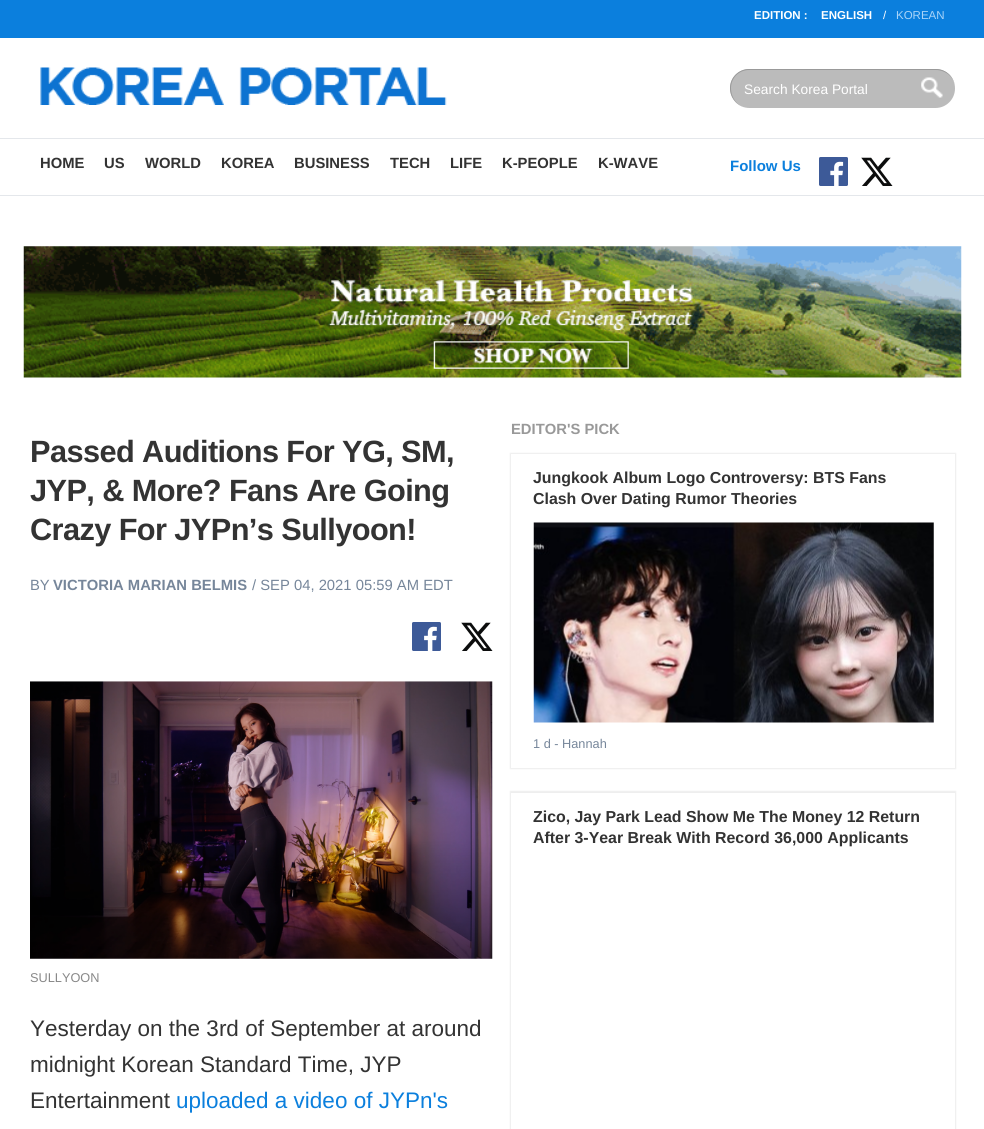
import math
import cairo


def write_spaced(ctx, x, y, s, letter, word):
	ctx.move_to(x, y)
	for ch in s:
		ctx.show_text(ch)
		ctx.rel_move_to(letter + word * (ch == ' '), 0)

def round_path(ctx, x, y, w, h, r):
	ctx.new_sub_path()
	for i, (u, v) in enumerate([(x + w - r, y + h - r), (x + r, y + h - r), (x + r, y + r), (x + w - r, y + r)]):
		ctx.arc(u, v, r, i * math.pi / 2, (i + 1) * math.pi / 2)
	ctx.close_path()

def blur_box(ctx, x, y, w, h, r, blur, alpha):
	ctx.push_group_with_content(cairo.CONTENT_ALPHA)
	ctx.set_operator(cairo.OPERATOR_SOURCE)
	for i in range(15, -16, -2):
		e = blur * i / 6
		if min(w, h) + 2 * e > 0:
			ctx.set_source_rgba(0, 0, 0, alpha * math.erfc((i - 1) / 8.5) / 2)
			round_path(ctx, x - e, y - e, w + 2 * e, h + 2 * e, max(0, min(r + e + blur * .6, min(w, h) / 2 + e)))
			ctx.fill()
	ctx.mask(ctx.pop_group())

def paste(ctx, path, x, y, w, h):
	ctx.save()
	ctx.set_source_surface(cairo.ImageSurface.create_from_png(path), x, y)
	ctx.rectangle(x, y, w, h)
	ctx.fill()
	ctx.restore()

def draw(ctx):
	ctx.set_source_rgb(1, 1, 1)
	ctx.paint()
	ctx.set_source_rgb(0.043, 0.498, 0.867)
	ctx.rectangle(0, 0, 984, 38)
	ctx.fill()
	ctx.select_font_face('Liberation Sans', cairo.FONT_SLANT_NORMAL, cairo.FONT_WEIGHT_BOLD)
	ctx.set_font_size(11.5)
	ctx.set_source_rgb(1, 1, 1)
	ctx.move_to(754, 19)
	ctx.show_text('EDITION :')
	ctx.move_to(821, 19)
	ctx.show_text('ENGLISH')
	ctx.select_font_face('Liberation Sans')
	ctx.move_to(883, 19)
	ctx.show_text('/')
	ctx.set_source_rgb(0.663, 0.831, 0.969)
	ctx.move_to(896, 19)
	ctx.show_text('KOREAN')
	paste(ctx, 'media/1.png', 40, 67, 407, 38)
	ctx.set_source_rgb(0.733, 0.733, 0.733)
	round_path(ctx, 730, 69, 225, 39, 19.5)
	ctx.fill()
	ctx.set_source_rgb(0.6, 0.6, 0.6)
	ctx.set_fill_rule(cairo.FILL_RULE_EVEN_ODD)
	ctx.new_path()
	ctx.move_to(749, 69)
	ctx.line_to(936, 69)
	ctx.curve_to(946, 69, 955, 77, 955, 88)
	ctx.curve_to(955, 99, 946, 108, 936, 108)
	ctx.line_to(749, 108)
	ctx.curve_to(739, 108, 730, 99, 730, 88)
	ctx.curve_to(730, 77, 739, 69, 749, 69)
	ctx.close_path()
	ctx.move_to(749, 70)
	ctx.line_to(936, 70)
	ctx.curve_to(946, 70, 955, 78, 955, 88)
	ctx.curve_to(955, 99, 946, 108, 936, 108)
	ctx.line_to(749, 108)
	ctx.curve_to(739, 108, 731, 99, 731, 88)
	ctx.curve_to(731, 78, 739, 70, 749, 70)
	ctx.close_path()
	ctx.fill()
	ctx.set_font_size(13.75)
	ctx.set_source_rgb(1, 1, 1)
	ctx.move_to(744, 94)
	ctx.show_text('Search Korea Portal')
	paste(ctx, 'media/2.png', 921, 77, 22, 21)
	ctx.set_source_rgb(0.894, 0.906, 0.918)
	ctx.rectangle(0, 138, 984, 1)
	ctx.fill()
	ctx.rectangle(0, 195, 984, 1)
	ctx.fill()
	ctx.select_font_face('Liberation Sans', cairo.FONT_SLANT_NORMAL, cairo.FONT_WEIGHT_BOLD)
	ctx.set_font_size(14.8)
	ctx.set_source_rgb(0.2, 0.2, 0.2)
	for x, y, s in [
		(40, 168, 'HOME'),
		(104, 168, 'US'),
		(145, 168, 'WORLD'),
		(221, 168, 'KOREA'),
		(294, 168, 'BUSINESS'),
		(390, 168, 'TECH'),
		(450, 168, 'LIFE'),
		(502, 168, 'K-PEOPLE'),
		(598, 168, 'K-WAVE'),
	]:
		ctx.move_to(x, y)
		ctx.show_text(s)
	ctx.set_font_size(15)
	ctx.set_source_rgb(0.043, 0.498, 0.867)
	ctx.move_to(730, 171)
	ctx.show_text('Follow Us')
	paste(ctx, 'media/3.png', 819, 157, 29, 29)
	paste(ctx, 'media/4.png', 861, 157, 32, 29)
	paste(ctx, 'media/5.png', 23, 246, 939, 132)
	ctx.set_font_size(30.75)
	ctx.set_source_rgb(0.2, 0.2, 0.2)
	for x, y, s in [
		(30, 462, 'Passed Auditions For YG, SM,'),
		(30, 501, 'JYP, & More? Fans Are Going'),
		(30, 540, 'Crazy For JYPn’s Sullyoon!'),
	]:
		write_spaced(ctx, x, y, s, -0.6, 0)
	ctx.select_font_face('Liberation Sans')
	ctx.set_font_size(14.8)
	ctx.set_source_rgb(0.463, 0.525, 0.604)
	ctx.move_to(30, 590)
	ctx.show_text('BY')
	ctx.select_font_face('Liberation Sans', cairo.FONT_SLANT_NORMAL, cairo.FONT_WEIGHT_BOLD)
	ctx.move_to(53, 590)
	ctx.show_text('VICTORIA MARIAN BELMIS')
	ctx.select_font_face('Liberation Sans')
	ctx.move_to(252, 590)
	ctx.show_text('/ SEP 04, 2021 05:59 AM EDT')
	paste(ctx, 'media/6.png', 412, 622, 29, 29)
	paste(ctx, 'media/4.png', 461, 622, 32, 29)
	paste(ctx, 'media/7.png', 30, 681, 463, 278)
	ctx.set_font_size(12.75)
	ctx.set_source_rgb(0.533, 0.533, 0.533)
	ctx.move_to(30, 982)
	ctx.show_text('SULLYOON')
	ctx.set_font_size(22.5)
	ctx.set_source_rgb(0.2, 0.2, 0.2)
	for x, y, s in [
		(30, 1036, 'Yesterday on the 3rd of September at around'),
		(30, 1072, 'midnight Korean Standard Time, JYP'),
		(30, 1108, 'Entertainment'),
	]:
		ctx.move_to(x, y)
		ctx.show_text(s)
	ctx.set_source_rgb(0.043, 0.498, 0.867)
	ctx.move_to(176, 1108)
	ctx.show_text('uploaded a video of JYPn\'s')
	ctx.select_font_face('Liberation Sans', cairo.FONT_SLANT_NORMAL, cairo.FONT_WEIGHT_BOLD)
	ctx.set_font_size(14.8)
	ctx.set_source_rgb(0.6, 0.6, 0.6)
	ctx.move_to(511, 434)
	ctx.show_text('EDITOR\'S PICK')
	ctx.set_source_rgb(0.933, 0.933, 0.933)
	blur_box(ctx, 510, 453, 446, 316, 0, 0.5, 1)
	ctx.set_source_rgb(1, 1, 1)
	ctx.rectangle(511, 454, 444, 314)
	ctx.fill()
	ctx.set_font_size(15.9)
	ctx.set_source_rgb(0.2, 0.2, 0.2)
	ctx.move_to(533, 483)
	ctx.show_text('Jungkook Album Logo Controversy: BTS Fans')
	ctx.move_to(533, 504)
	ctx.show_text('Clash Over Dating Rumor Theories')
	paste(ctx, 'media/8.png', 533, 522, 401, 201)
	ctx.select_font_face('Liberation Sans')
	ctx.set_font_size(12.75)
	ctx.set_source_rgb(0.463, 0.525, 0.604)
	ctx.move_to(533, 748)
	ctx.show_text('1 d - Hannah')
	ctx.set_source_rgb(0.933, 0.933, 0.933)
	blur_box(ctx, 510, 791, 446, 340, 0, 0.5, 1)
	ctx.set_source_rgb(1, 1, 1)
	ctx.rectangle(511, 793, 444, 336)
	ctx.fill()
	ctx.select_font_face('Liberation Sans', cairo.FONT_SLANT_NORMAL, cairo.FONT_WEIGHT_BOLD)
	ctx.set_font_size(15.9)
	ctx.set_source_rgb(0.2, 0.2, 0.2)
	ctx.move_to(533, 822)
	ctx.show_text('Zico, Jay Park Lead Show Me The Money 12 Return')
	ctx.move_to(533, 843)
	ctx.show_text('After 3-Year Break With Record 36,000 Applicants')


surface = cairo.ImageSurface(cairo.FORMAT_RGB24, 984, 1129)
ctx = cairo.Context(surface)
options = cairo.FontOptions()
options.set_hint_metrics(cairo.HINT_METRICS_OFF)
options.set_hint_style(cairo.HINT_STYLE_NONE)
ctx.set_font_options(options)
ctx.set_miter_limit(4)
draw(ctx)
surface.write_to_png('image.png')
